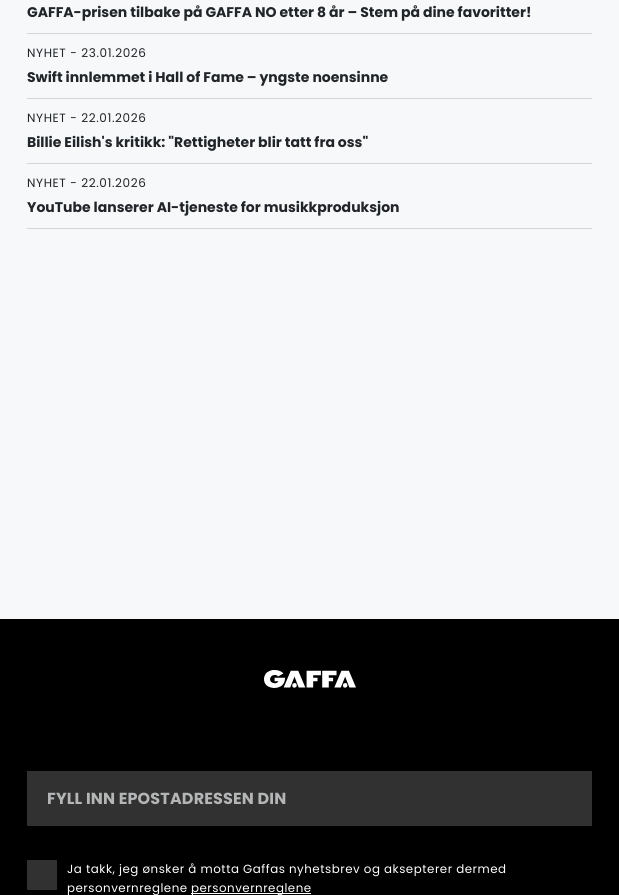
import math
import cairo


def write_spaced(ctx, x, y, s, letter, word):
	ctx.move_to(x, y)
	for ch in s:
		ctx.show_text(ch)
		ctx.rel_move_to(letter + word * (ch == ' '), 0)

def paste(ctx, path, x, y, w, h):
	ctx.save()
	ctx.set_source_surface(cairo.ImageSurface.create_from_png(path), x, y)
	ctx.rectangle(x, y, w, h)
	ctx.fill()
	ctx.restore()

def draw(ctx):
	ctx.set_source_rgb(0.961, 0.969, 0.973)
	ctx.paint()
	ctx.set_source_rgb(0.835, 0.835, 0.835)
	ctx.rectangle(27, 33, 565, 1)
	ctx.fill()
	ctx.select_font_face('Poppins', cairo.FONT_SLANT_NORMAL, cairo.FONT_WEIGHT_BOLD)
	ctx.set_font_size(14)
	ctx.set_source_rgb(0.129, 0.145, 0.161)
	ctx.move_to(27, 17)
	ctx.show_text('GAFFA-prisen tilbake på GAFFA NO etter 8 år – Stem på dine favoritter!')
	ctx.set_source_rgb(0.835, 0.835, 0.835)
	ctx.rectangle(27, 98, 565, 1)
	ctx.fill()
	ctx.select_font_face('Poppins')
	ctx.set_font_size(12)
	ctx.set_source_rgb(0.129, 0.145, 0.161)
	write_spaced(ctx, 27, 57, 'NYHET - 23.01.2026', 0.6, 0)
	ctx.select_font_face('Poppins', cairo.FONT_SLANT_NORMAL, cairo.FONT_WEIGHT_BOLD)
	ctx.set_font_size(14)
	ctx.move_to(27, 82)
	ctx.show_text('Swift innlemmet i Hall of Fame – yngste noensinne')
	ctx.set_source_rgb(0.835, 0.835, 0.835)
	ctx.rectangle(27, 163, 565, 1)
	ctx.fill()
	ctx.select_font_face('Poppins')
	ctx.set_font_size(12)
	ctx.set_source_rgb(0.129, 0.145, 0.161)
	write_spaced(ctx, 27, 122, 'NYHET - 22.01.2026', 0.6, 0)
	ctx.select_font_face('Poppins', cairo.FONT_SLANT_NORMAL, cairo.FONT_WEIGHT_BOLD)
	ctx.set_font_size(14)
	ctx.move_to(27, 147)
	ctx.show_text('Billie Eilish\'s kritikk: "Rettigheter blir tatt fra oss"')
	ctx.set_source_rgb(0.835, 0.835, 0.835)
	ctx.rectangle(27, 228, 565, 1)
	ctx.fill()
	ctx.select_font_face('Poppins')
	ctx.set_font_size(12)
	ctx.set_source_rgb(0.129, 0.145, 0.161)
	write_spaced(ctx, 27, 187, 'NYHET - 22.01.2026', 0.6, 0)
	ctx.select_font_face('Poppins', cairo.FONT_SLANT_NORMAL, cairo.FONT_WEIGHT_BOLD)
	ctx.set_font_size(14)
	ctx.move_to(27, 212)
	ctx.show_text('YouTube lanserer AI-tjeneste for musikkproduksjon')
	ctx.set_source_rgb(0, 0, 0)
	ctx.rectangle(0, 619, 619, 276)
	ctx.fill()
	paste(ctx, 'media/1.png', 264, 670, 92, 18)
	ctx.set_source_rgb(0.192, 0.192, 0.192)
	ctx.rectangle(27, 771, 565, 55)
	ctx.fill()
	ctx.set_font_size(16)
	ctx.set_source_rgb(0.706, 0.71, 0.714)
	write_spaced(ctx, 47, 804, 'FYLL INN EPOSTADRESSEN DIN', 0.15, 0)
	ctx.set_source_rgb(0.192, 0.192, 0.192)
	ctx.rectangle(27, 860, 30, 30)
	ctx.fill()
	ctx.select_font_face('Poppins')
	ctx.set_font_size(11.85)
	ctx.set_source_rgb(1, 1, 1)
	write_spaced(ctx, 67, 873, 'Ja takk, jeg ønsker å motta Gaffas nyhetsbrev og aksepterer dermed', 0.5, 0)
	write_spaced(ctx, 67, 892, 'personvernreglene', 0.5, 0)
	ctx.rectangle(191, 893, 120, 1)
	ctx.fill()
	write_spaced(ctx, 191, 892, 'personvernreglene', 0.5, 0)


surface = cairo.ImageSurface(cairo.FORMAT_RGB24, 619, 895)
ctx = cairo.Context(surface)
options = cairo.FontOptions()
options.set_hint_metrics(cairo.HINT_METRICS_OFF)
options.set_hint_style(cairo.HINT_STYLE_NONE)
ctx.set_font_options(options)
ctx.set_miter_limit(4)
draw(ctx)
surface.write_to_png('image.png')
